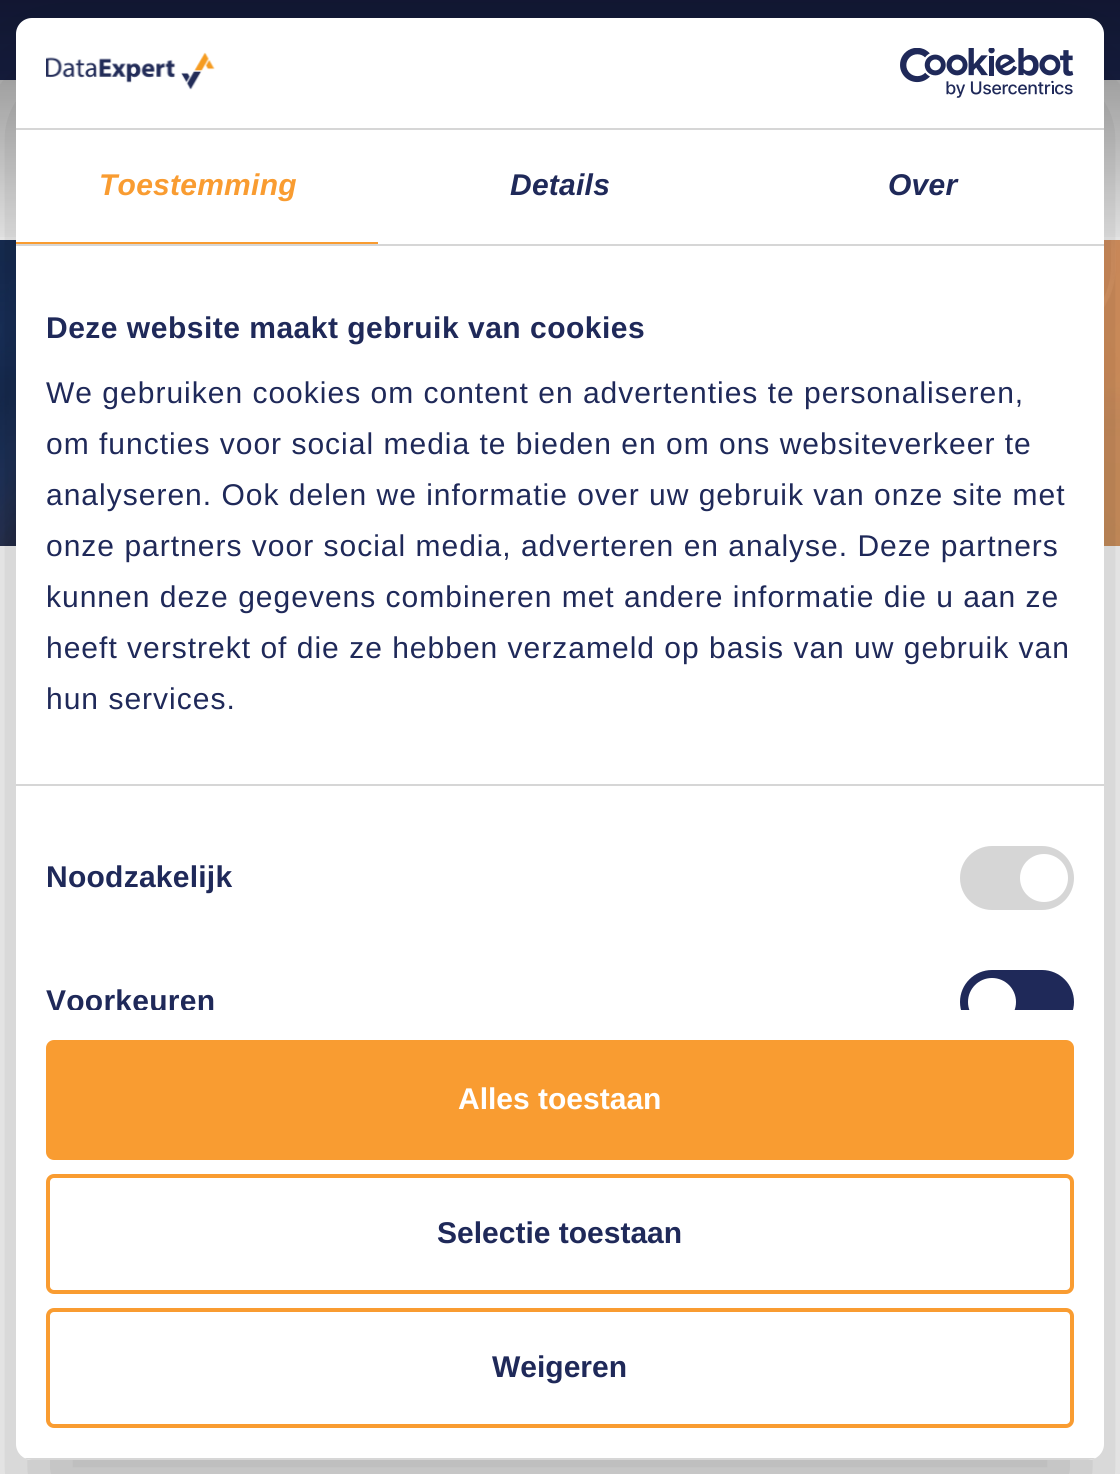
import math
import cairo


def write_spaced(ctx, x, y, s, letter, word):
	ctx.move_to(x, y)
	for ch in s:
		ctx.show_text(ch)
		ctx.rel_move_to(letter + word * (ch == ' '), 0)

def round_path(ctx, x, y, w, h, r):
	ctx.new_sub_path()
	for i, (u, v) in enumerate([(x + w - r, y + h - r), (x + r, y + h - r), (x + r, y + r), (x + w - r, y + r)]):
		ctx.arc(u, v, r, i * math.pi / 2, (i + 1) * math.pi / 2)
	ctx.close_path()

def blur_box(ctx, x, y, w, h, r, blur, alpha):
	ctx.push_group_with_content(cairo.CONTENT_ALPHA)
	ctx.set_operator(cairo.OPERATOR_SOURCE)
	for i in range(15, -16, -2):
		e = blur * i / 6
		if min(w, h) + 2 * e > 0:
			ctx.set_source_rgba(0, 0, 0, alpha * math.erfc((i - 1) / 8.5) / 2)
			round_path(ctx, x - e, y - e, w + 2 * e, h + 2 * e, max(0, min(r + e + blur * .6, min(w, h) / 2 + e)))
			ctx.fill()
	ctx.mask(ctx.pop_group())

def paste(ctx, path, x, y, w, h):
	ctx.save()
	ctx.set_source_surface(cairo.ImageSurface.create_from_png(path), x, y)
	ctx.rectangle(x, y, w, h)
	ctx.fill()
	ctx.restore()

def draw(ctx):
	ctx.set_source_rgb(1, 1, 1)
	ctx.paint()
	ctx.set_source_rgb(0.122, 0.161, 0.349)
	ctx.rectangle(0, 0, 1120, 80)
	ctx.fill()
	gradient = cairo.LinearGradient(0, 250, 0, -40)
	gradient.add_color_stop_rgba(0, 0, 0, 0, 0)
	gradient.add_color_stop_rgba(1, 0, 0, 0, 0.5)
	ctx.set_source(gradient)
	ctx.rectangle(0, 0, 1120, 237)
	ctx.fill()
	paste(ctx, 'media/3.png', 0, 240, 1120, 306)
	ctx.set_source_rgb(0, 0, 0)
	blur_box(ctx, 16, 82, 1088, 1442, 16, 68, 0.3)
	ctx.set_source_rgb(1, 1, 1)
	round_path(ctx, 16, 18, 1088, 1442, 16)
	ctx.fill()
	ctx.set_source_rgb(0.839, 0.839, 0.839)
	ctx.rectangle(16, 128, 1088, 2)
	ctx.fill()
	paste(ctx, 'media/1.png', 46, 52, 169, 38)
	paste(ctx, 'media/2.png', 900, 48, 174, 50)
	ctx.rectangle(16, 244, 1088, 2)
	ctx.fill()
	ctx.set_source_rgb(0.973, 0.612, 0.192)
	ctx.rectangle(16, 242, 362, 2)
	ctx.fill()
	ctx.select_font_face('Liberation Sans', cairo.FONT_SLANT_ITALIC, cairo.FONT_WEIGHT_BOLD)
	ctx.set_font_size(30)
	write_spaced(ctx, 99, 195, 'Toestemming', 0.25, 0)
	ctx.set_source_rgb(0.122, 0.161, 0.349)
	write_spaced(ctx, 510, 195, 'Details', 0.25, 0)
	write_spaced(ctx, 888, 195, 'Over', 0.25, 0)
	ctx.set_source_rgb(0.839, 0.839, 0.839)
	ctx.rectangle(16, 784, 1088, 2)
	ctx.fill()
	ctx.select_font_face('Liberation Sans', cairo.FONT_SLANT_NORMAL, cairo.FONT_WEIGHT_BOLD)
	ctx.set_source_rgb(0.122, 0.161, 0.349)
	write_spaced(ctx, 46, 338, 'Deze website maakt gebruik van cookies', 0.5, 0)
	ctx.select_font_face('Liberation Sans')
	for x, y, s in [
		(46, 403, 'We gebruiken cookies om content en advertenties te personaliseren,'),
		(46, 454, 'om functies voor social media te bieden en om ons websiteverkeer te'),
		(46, 505, 'analyseren. Ook delen we informatie over uw gebruik van onze site met'),
		(46, 556, 'onze partners voor social media, adverteren en analyse. Deze partners'),
		(46, 607, 'kunnen deze gegevens combineren met andere informatie die u aan ze'),
		(46, 658, 'heeft verstrekt of die ze hebben verzameld op basis van uw gebruik van'),
		(46, 709, 'hun services.'),
	]:
		write_spaced(ctx, x, y, s, 1, 0)
	ctx.select_font_face('Liberation Sans', cairo.FONT_SLANT_NORMAL, cairo.FONT_WEIGHT_BOLD)
	write_spaced(ctx, 46, 887, 'Noodzakelijk', 0.25, 0)
	ctx.set_source_rgb(0.839, 0.839, 0.839)
	round_path(ctx, 960, 846, 114, 64, 32)
	ctx.fill()
	ctx.set_source_rgb(1, 1, 1)
	ctx.arc(1044, 878, 24, 0, 2 * math.pi)
	ctx.fill()
	ctx.save()
	ctx.rectangle(16, 246, 1088, 764)
	ctx.clip()
	ctx.set_source_rgb(0.122, 0.161, 0.349)
	write_spaced(ctx, 46, 1011, 'Voorkeuren', 0.25, 0)
	round_path(ctx, 960, 970, 114, 64, 32)
	ctx.fill()
	ctx.set_source_rgb(1, 1, 1)
	ctx.arc(992, 1002, 24, 0, 2 * math.pi)
	ctx.fill()
	ctx.restore()
	ctx.save()
	round_path(ctx, 16, 18, 1088, 1442, 16)
	ctx.clip()
	ctx.set_source_rgb(0.839, 0.839, 0.839)
	ctx.rectangle(16, 1458, 1088, 2)
	ctx.fill()
	ctx.restore()
	ctx.set_source_rgb(0.973, 0.612, 0.192)
	round_path(ctx, 48, 1042, 1024, 116, 6)
	ctx.fill_preserve()
	ctx.set_line_width(4)
	ctx.stroke()
	ctx.set_source_rgb(1, 1, 1)
	ctx.move_to(458, 1109)
	ctx.show_text('Alles toestaan')
	round_path(ctx, 48, 1176, 1024, 116, 6)
	ctx.set_source_rgb(0.973, 0.612, 0.192)
	ctx.stroke()
	ctx.set_source_rgb(0.122, 0.161, 0.349)
	ctx.move_to(437, 1243)
	ctx.show_text('Selectie toestaan')
	round_path(ctx, 48, 1310, 1024, 116, 6)
	ctx.set_source_rgb(0.973, 0.612, 0.192)
	ctx.stroke()
	ctx.set_source_rgb(0.122, 0.161, 0.349)
	ctx.move_to(492, 1377)
	ctx.show_text('Weigeren')


surface = cairo.ImageSurface(cairo.FORMAT_RGB24, 1120, 1474)
ctx = cairo.Context(surface)
options = cairo.FontOptions()
options.set_hint_metrics(cairo.HINT_METRICS_OFF)
options.set_hint_style(cairo.HINT_STYLE_NONE)
ctx.set_font_options(options)
ctx.set_miter_limit(4)
draw(ctx)
surface.write_to_png('image.png')
